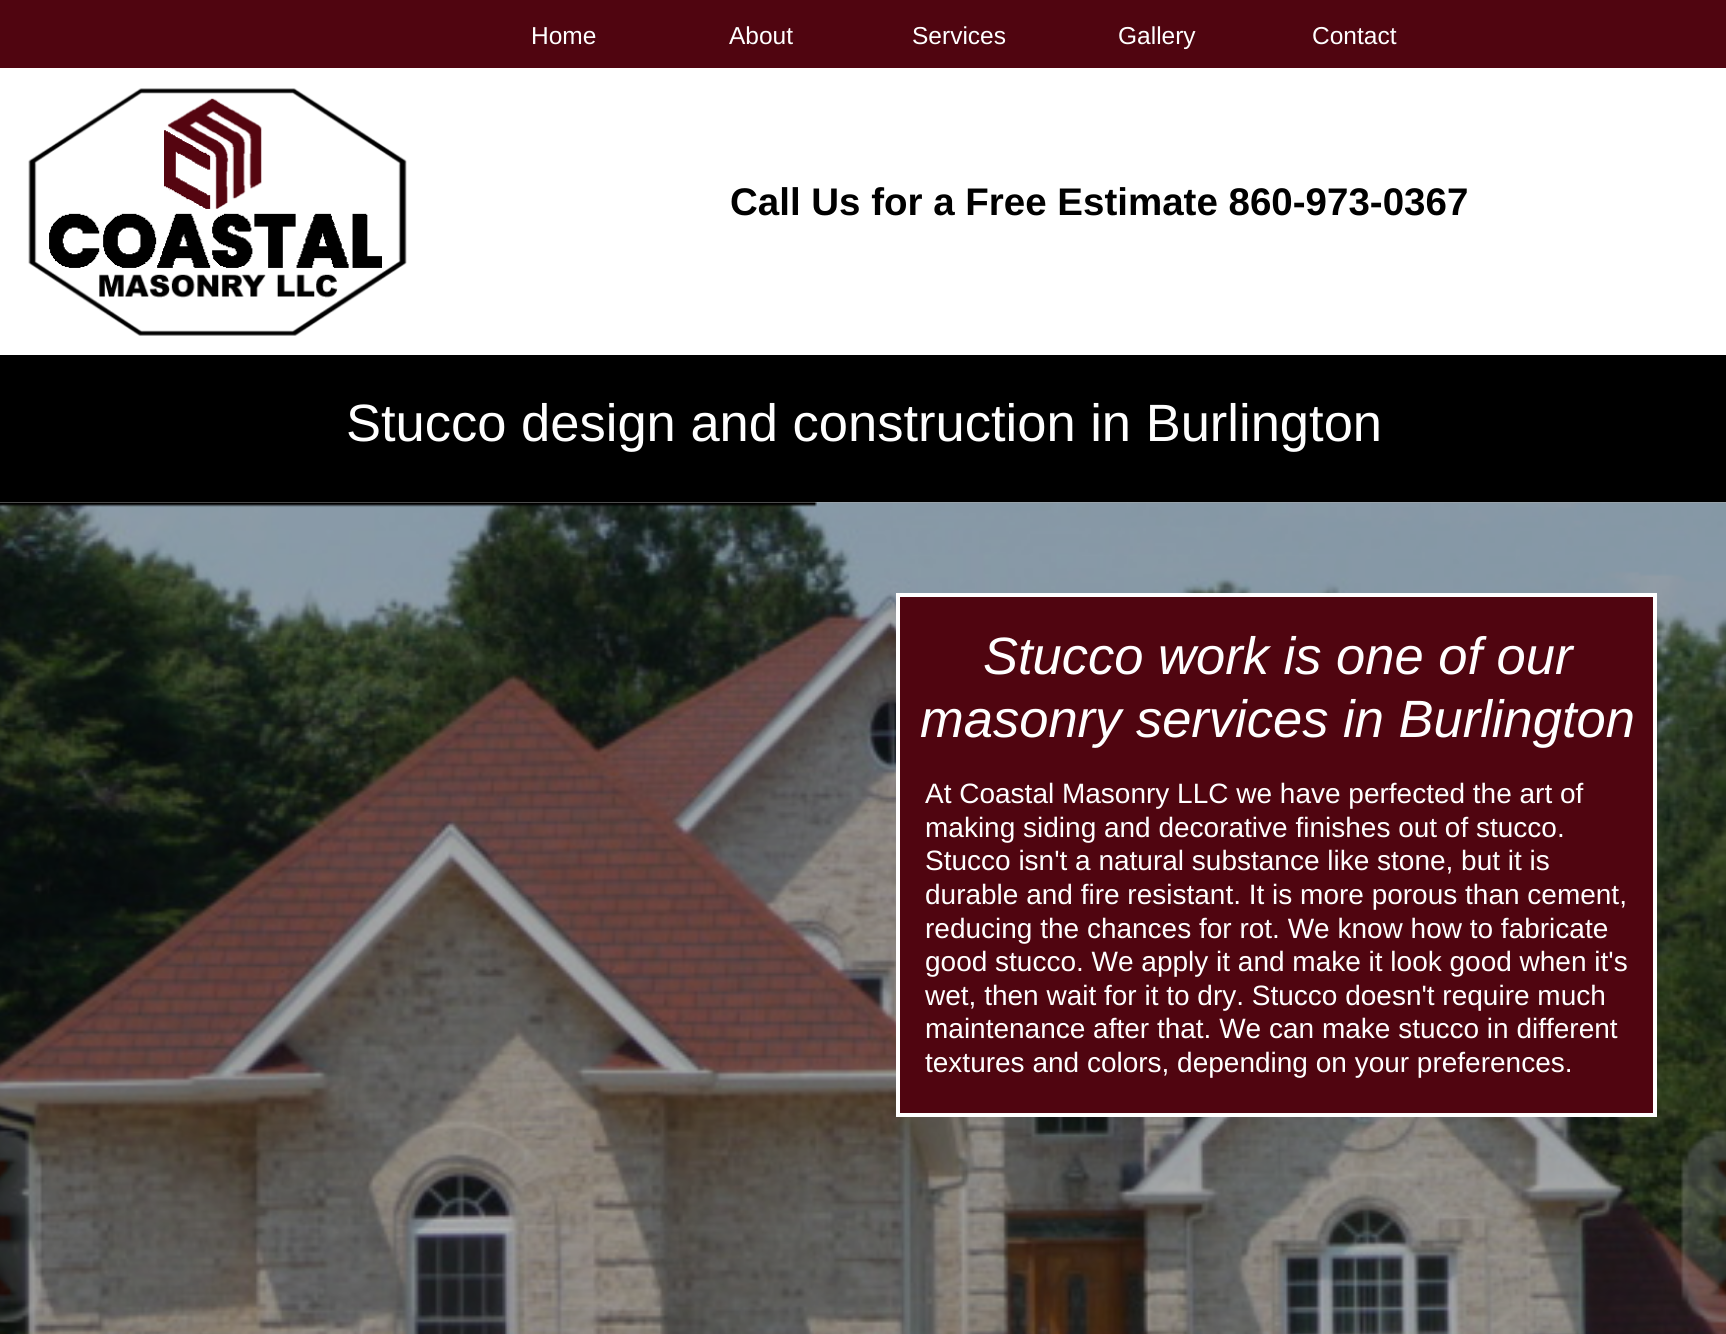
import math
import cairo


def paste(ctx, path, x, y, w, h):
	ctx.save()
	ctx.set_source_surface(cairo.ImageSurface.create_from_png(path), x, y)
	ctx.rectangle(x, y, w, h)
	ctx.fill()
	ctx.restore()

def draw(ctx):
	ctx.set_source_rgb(1, 1, 1)
	ctx.paint()
	ctx.set_source_rgb(0.69, 0.69, 0.69)
	ctx.rectangle(0, 502, 1726, 1)
	ctx.fill()
	ctx.set_source_rgb(0.314, 0.02, 0.063)
	ctx.rectangle(0, 0, 1726, 68)
	ctx.fill()
	ctx.select_font_face('Liberation Sans')
	ctx.set_font_size(24.5)
	ctx.set_source_rgb(1, 1, 1)
	for x, y, s in [
		(531, 44, 'Home'),
		(729, 44, 'About'),
		(912, 44, 'Services'),
		(1118, 44, 'Gallery'),
		(1312, 44, 'Contact'),
	]:
		ctx.move_to(x, y)
		ctx.show_text(s)
	paste(ctx, 'media/1.png', 28, 88, 379, 248)
	ctx.select_font_face('Liberation Sans', cairo.FONT_SLANT_NORMAL, cairo.FONT_WEIGHT_BOLD)
	ctx.set_font_size(38.5)
	ctx.set_source_rgb(0, 0, 0)
	ctx.move_to(730, 215)
	ctx.show_text('Call Us for a Free Estimate 860-973-0367')
	ctx.rectangle(0, 355, 1726, 147)
	ctx.fill()
	ctx.select_font_face('Liberation Sans')
	ctx.set_font_size(52.5)
	ctx.set_source_rgb(1, 1, 1)
	ctx.move_to(346, 441)
	ctx.show_text('Stucco design and construction in Burlington')
	paste(ctx, 'media/2.png', 0, 502, 1726, 832)
	ctx.set_source_rgb(0.314, 0.02, 0.063)
	ctx.rectangle(898, 595, 757, 520)
	ctx.fill_preserve()
	ctx.set_source_rgb(1, 1, 1)
	ctx.set_line_width(4)
	ctx.stroke()
	ctx.select_font_face('Liberation Sans', cairo.FONT_SLANT_ITALIC)
	ctx.move_to(983, 674)
	ctx.show_text('Stucco work is one of our')
	ctx.move_to(920, 737)
	ctx.show_text('masonry services in Burlington')
	ctx.select_font_face('Liberation Sans')
	ctx.set_font_size(28)
	for x, y, s in [
		(925, 803, 'At Coastal Masonry LLC we have perfected the art of'),
		(925, 837, 'making siding and decorative finishes out of stucco.'),
		(925, 870, 'Stucco isn\'t a natural substance like stone, but it is'),
		(925, 904, 'durable and fire resistant. It is more porous than cement,'),
		(925, 938, 'reducing the chances for rot. We know how to fabricate'),
		(925, 971, 'good stucco. We apply it and make it look good when it\'s'),
		(925, 1005, 'wet, then wait for it to dry. Stucco doesn\'t require much'),
		(925, 1038, 'maintenance after that. We can make stucco in different'),
		(925, 1072, 'textures and colors, depending on your preferences.'),
	]:
		ctx.move_to(x, y)
		ctx.show_text(s)


surface = cairo.ImageSurface(cairo.FORMAT_RGB24, 1726, 1334)
ctx = cairo.Context(surface)
options = cairo.FontOptions()
options.set_hint_metrics(cairo.HINT_METRICS_OFF)
options.set_hint_style(cairo.HINT_STYLE_NONE)
ctx.set_font_options(options)
ctx.set_miter_limit(4)
draw(ctx)
surface.write_to_png('image.png')
